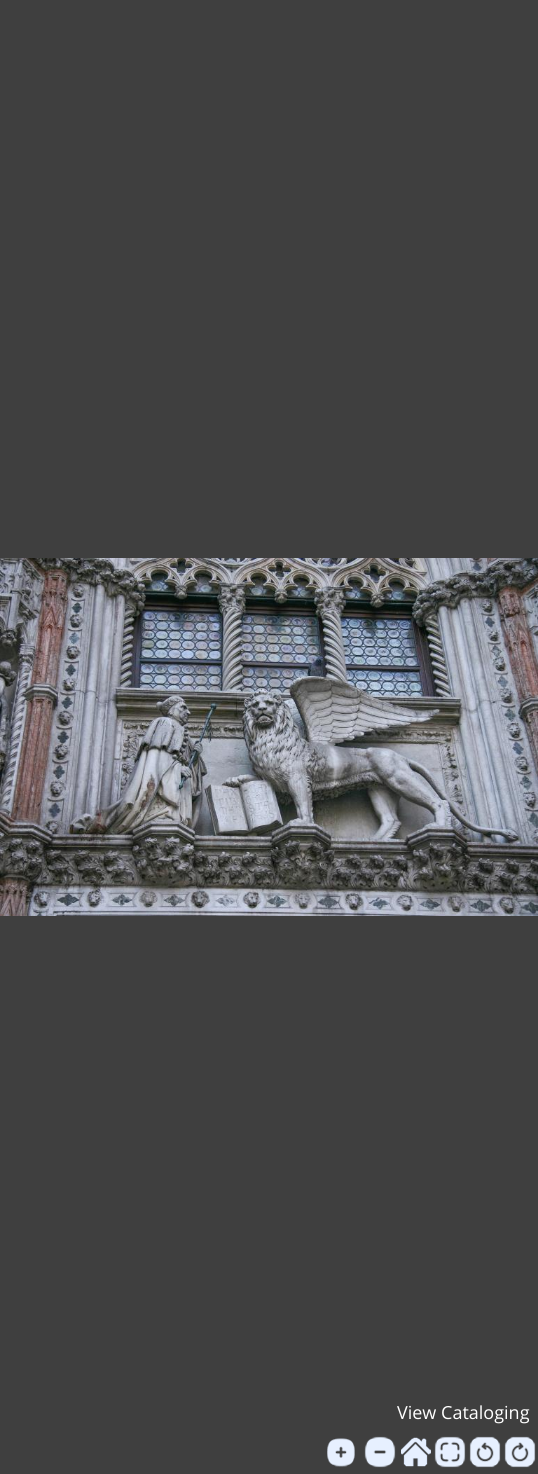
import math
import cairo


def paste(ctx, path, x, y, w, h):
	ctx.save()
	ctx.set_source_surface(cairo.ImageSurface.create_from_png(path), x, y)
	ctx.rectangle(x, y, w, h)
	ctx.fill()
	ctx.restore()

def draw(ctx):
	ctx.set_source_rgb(0.247, 0.247, 0.247)
	ctx.paint()
	paste(ctx, 'media/1.png', 0, 558, 538, 358)
	paste(ctx, 'media/2.png', 327, 1438, 28, 29)
	paste(ctx, 'media/3.png', 327, 1438, 28, 29)
	paste(ctx, 'media/4.png', 364, 1436, 32, 32)
	paste(ctx, 'media/5.png', 365, 1437, 30, 30)
	paste(ctx, 'media/6.png', 401, 1437, 30, 30)
	paste(ctx, 'media/7.png', 401, 1437, 30, 30)
	paste(ctx, 'media/8.png', 434, 1436, 32, 32)
	paste(ctx, 'media/9.png', 435, 1437, 30, 30)
	paste(ctx, 'media/10.png', 469, 1436, 32, 32)
	paste(ctx, 'media/11.png', 470, 1437, 30, 30)
	paste(ctx, 'media/12.png', 504, 1436, 32, 32)
	paste(ctx, 'media/13.png', 505, 1437, 30, 30)
	ctx.select_font_face('Open Sans')
	ctx.set_font_size(18)
	ctx.set_source_rgb(1, 1, 1)
	ctx.move_to(397, 1419)
	ctx.show_text('View Cataloging')


surface = cairo.ImageSurface(cairo.FORMAT_RGB24, 538, 1474)
ctx = cairo.Context(surface)
options = cairo.FontOptions()
options.set_hint_metrics(cairo.HINT_METRICS_OFF)
options.set_hint_style(cairo.HINT_STYLE_NONE)
ctx.set_font_options(options)
ctx.set_miter_limit(4)
draw(ctx)
surface.write_to_png('image.png')
